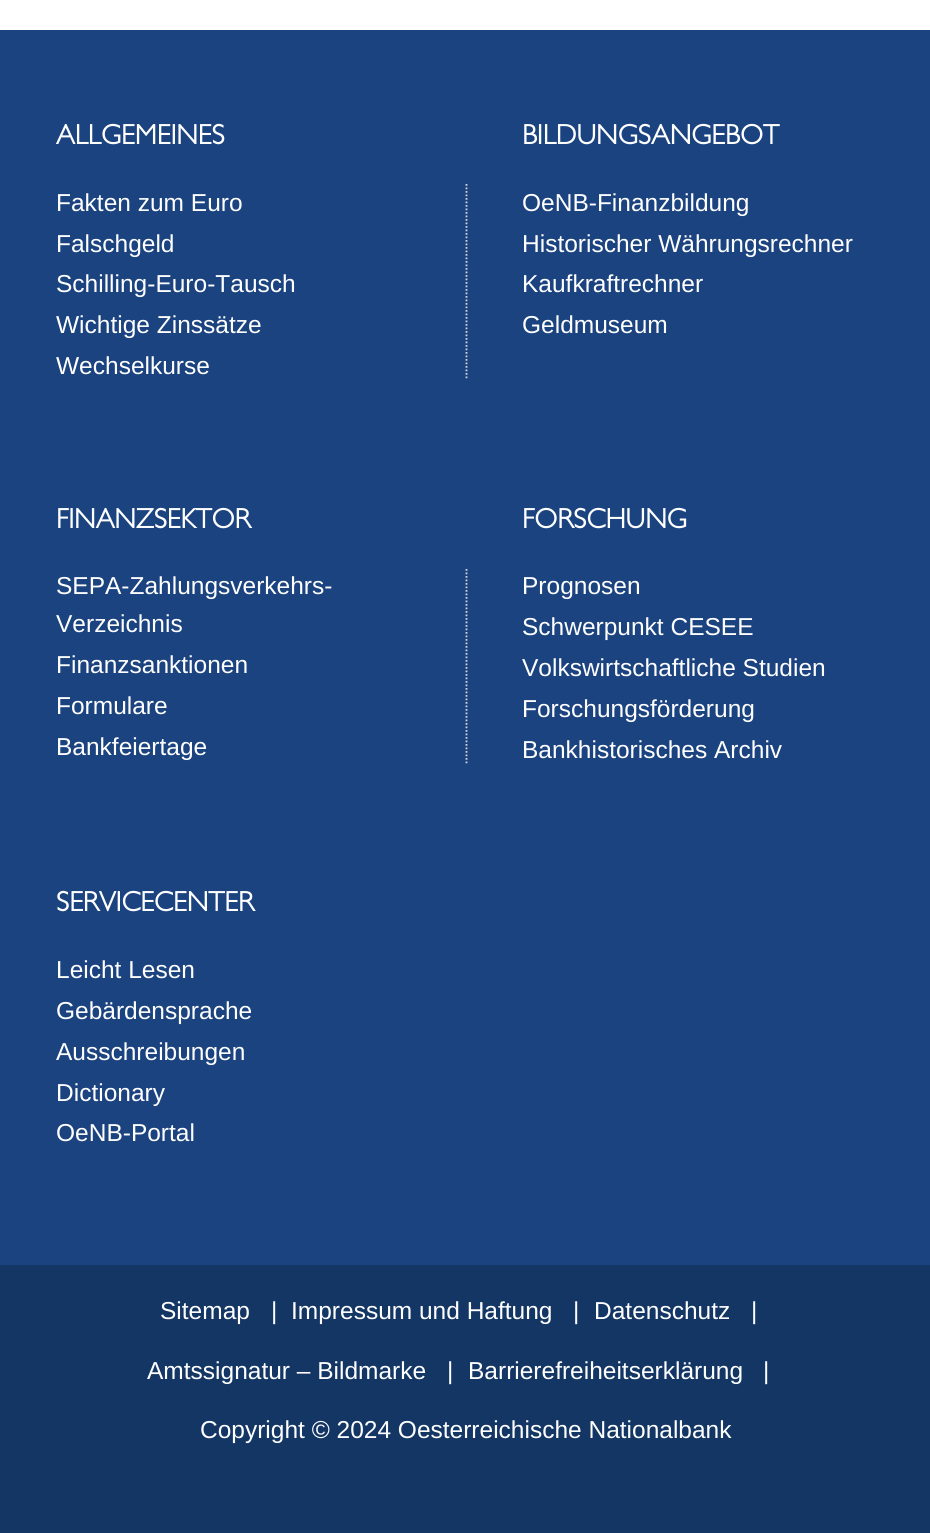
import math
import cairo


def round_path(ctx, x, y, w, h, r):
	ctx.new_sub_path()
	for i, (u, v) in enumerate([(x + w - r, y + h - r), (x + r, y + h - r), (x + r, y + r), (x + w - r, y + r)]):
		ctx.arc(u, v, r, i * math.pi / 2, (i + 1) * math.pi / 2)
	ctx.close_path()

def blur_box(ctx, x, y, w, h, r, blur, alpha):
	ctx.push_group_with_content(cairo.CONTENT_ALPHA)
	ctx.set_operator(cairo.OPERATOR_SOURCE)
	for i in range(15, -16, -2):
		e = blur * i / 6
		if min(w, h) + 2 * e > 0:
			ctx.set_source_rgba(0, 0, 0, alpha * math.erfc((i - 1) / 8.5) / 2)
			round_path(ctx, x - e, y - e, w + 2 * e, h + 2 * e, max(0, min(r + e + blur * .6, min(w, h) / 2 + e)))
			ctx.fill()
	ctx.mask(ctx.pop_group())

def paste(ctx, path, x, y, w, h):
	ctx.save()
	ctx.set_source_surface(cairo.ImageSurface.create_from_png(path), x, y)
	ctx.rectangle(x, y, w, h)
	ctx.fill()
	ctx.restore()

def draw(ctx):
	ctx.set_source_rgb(1, 1, 1)
	ctx.paint()
	paste(ctx, 'media/1.png', 0, 29, 930, 1)
	blur_box(ctx, -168, -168, 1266, 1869, 0, 56, 1)
	ctx.set_source_rgb(0.106, 0.263, 0.502)
	ctx.rectangle(0, 30, 930, 1235)
	ctx.fill()
	ctx.select_font_face('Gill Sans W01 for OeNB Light', cairo.FONT_SLANT_NORMAL, cairo.FONT_WEIGHT_BOLD)
	ctx.set_font_size(28)
	ctx.set_source_rgb(1, 1, 1)
	ctx.move_to(56, 144)
	ctx.show_text('ALLGEMEINES')
	ctx.select_font_face('Liberation Sans')
	ctx.set_font_size(24.5)
	for x, y, s in [
		(56, 211, 'Fakten zum Euro'),
		(56, 252, 'Falschgeld'),
		(56, 292, 'Schilling-Euro-Tausch'),
		(56, 333, 'Wichtige Zinssätze'),
		(56, 374, 'Wechselkurse'),
	]:
		ctx.move_to(x, y)
		ctx.show_text(s)
	ctx.select_font_face('Gill Sans W01 for OeNB Light', cairo.FONT_SLANT_NORMAL, cairo.FONT_WEIGHT_BOLD)
	ctx.set_font_size(28)
	ctx.move_to(522, 144)
	ctx.show_text('BILDUNGSANGEBOT')
	ctx.new_path()
	ctx.move_to(466.5, 184)
	ctx.line_to(466.5, 380)
	ctx.set_source_rgb(0.839, 0.839, 0.839)
	ctx.set_line_width(1.8)
	ctx.set_dash([1.75, 1.75])
	ctx.stroke()
	ctx.select_font_face('Liberation Sans')
	ctx.set_font_size(24.5)
	ctx.set_source_rgb(1, 1, 1)
	for x, y, s in [
		(522, 211, 'OeNB-Finanzbildung'),
		(522, 252, 'Historischer Währungsrechner'),
		(522, 292, 'Kaufkraftrechner'),
		(522, 333, 'Geldmuseum'),
	]:
		ctx.move_to(x, y)
		ctx.show_text(s)
	ctx.select_font_face('Gill Sans W01 for OeNB Light', cairo.FONT_SLANT_NORMAL, cairo.FONT_WEIGHT_BOLD)
	ctx.set_font_size(28)
	ctx.move_to(56, 528)
	ctx.show_text('FINANZSEKTOR')
	ctx.select_font_face('Liberation Sans')
	ctx.set_font_size(24.5)
	for x, y, s in [
		(56, 594, 'SEPA-Zahlungsverkehrs-'),
		(56, 632, 'Verzeichnis'),
		(56, 673, 'Finanzsanktionen'),
		(56, 714, 'Formulare'),
		(56, 755, 'Bankfeiertage'),
	]:
		ctx.move_to(x, y)
		ctx.show_text(s)
	ctx.select_font_face('Gill Sans W01 for OeNB Light', cairo.FONT_SLANT_NORMAL, cairo.FONT_WEIGHT_BOLD)
	ctx.set_font_size(28)
	ctx.move_to(522, 528)
	ctx.show_text('FORSCHUNG')
	ctx.new_path()
	ctx.move_to(466.5, 569)
	ctx.line_to(466.5, 765)
	ctx.set_source_rgb(0.839, 0.839, 0.839)
	ctx.stroke()
	ctx.select_font_face('Liberation Sans')
	ctx.set_font_size(24.5)
	ctx.set_source_rgb(1, 1, 1)
	for x, y, s in [
		(522, 594, 'Prognosen'),
		(522, 635, 'Schwerpunkt CESEE'),
		(522, 676, 'Volkswirtschaftliche Studien'),
		(522, 717, 'Forschungsförderung'),
		(522, 758, 'Bankhistorisches Archiv'),
	]:
		ctx.move_to(x, y)
		ctx.show_text(s)
	ctx.select_font_face('Gill Sans W01 for OeNB Light', cairo.FONT_SLANT_NORMAL, cairo.FONT_WEIGHT_BOLD)
	ctx.set_font_size(28)
	ctx.move_to(56, 911)
	ctx.show_text('SERVICECENTER')
	ctx.select_font_face('Liberation Sans')
	ctx.set_font_size(24.5)
	for x, y, s in [
		(56, 978, 'Leicht Lesen'),
		(56, 1019, 'Gebärdensprache'),
		(56, 1060, 'Ausschreibungen'),
		(56, 1101, 'Dictionary'),
		(56, 1141, 'OeNB-Portal'),
	]:
		ctx.move_to(x, y)
		ctx.show_text(s)
	ctx.set_source_rgb(0.075, 0.212, 0.396)
	ctx.rectangle(0, 1265, 930, 268)
	ctx.fill()
	ctx.set_source_rgb(1, 1, 1)
	for x, y, s in [
		(160, 1319, 'Sitemap'),
		(271, 1319, '|'),
		(291, 1319, 'Impressum und Haftung'),
		(573, 1319, '|'),
		(594, 1319, 'Datenschutz'),
		(751, 1319, '|'),
		(147, 1379, 'Amtssignatur – Bildmarke'),
		(447, 1379, '|'),
		(468, 1379, 'Barrierefreiheitserklärung'),
		(763, 1379, '|'),
		(200, 1438, 'Copyright © 2024 Oesterreichische Nationalbank'),
	]:
		ctx.move_to(x, y)
		ctx.show_text(s)


surface = cairo.ImageSurface(cairo.FORMAT_RGB24, 930, 1533)
ctx = cairo.Context(surface)
options = cairo.FontOptions()
options.set_hint_metrics(cairo.HINT_METRICS_OFF)
options.set_hint_style(cairo.HINT_STYLE_NONE)
ctx.set_font_options(options)
ctx.set_miter_limit(4)
draw(ctx)
surface.write_to_png('image.png')
